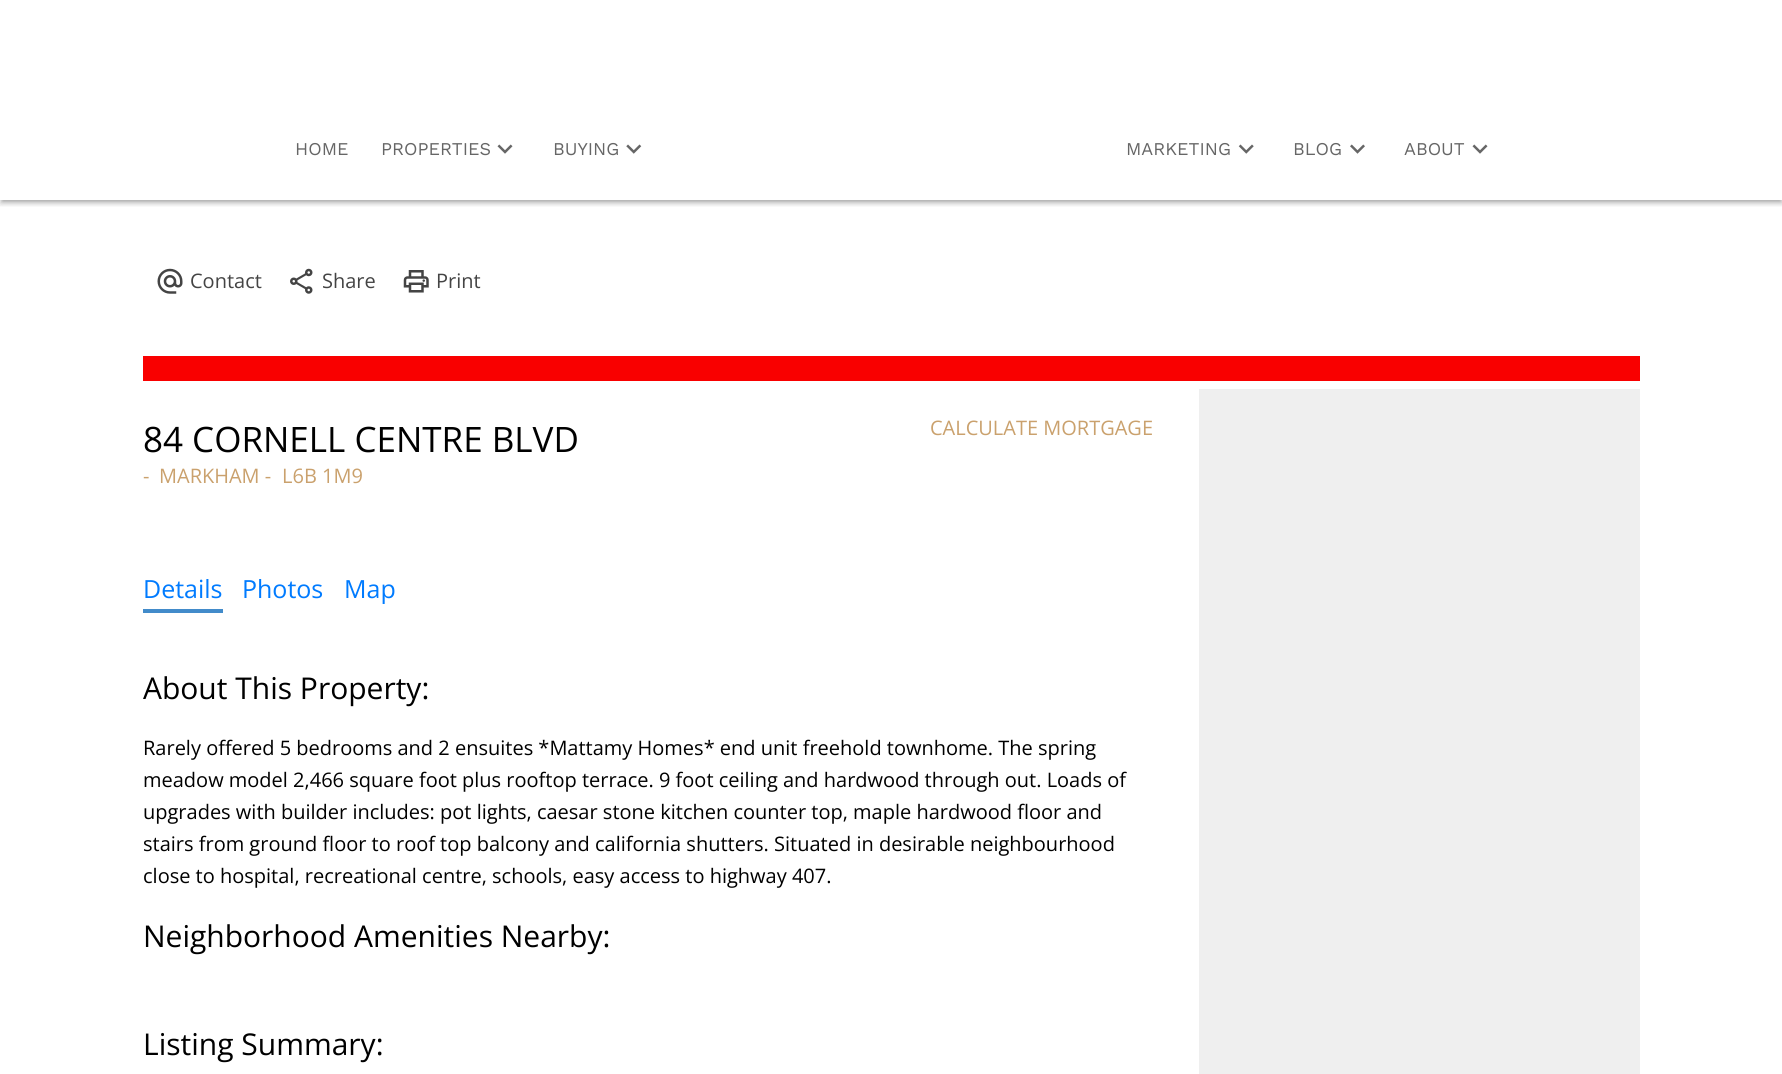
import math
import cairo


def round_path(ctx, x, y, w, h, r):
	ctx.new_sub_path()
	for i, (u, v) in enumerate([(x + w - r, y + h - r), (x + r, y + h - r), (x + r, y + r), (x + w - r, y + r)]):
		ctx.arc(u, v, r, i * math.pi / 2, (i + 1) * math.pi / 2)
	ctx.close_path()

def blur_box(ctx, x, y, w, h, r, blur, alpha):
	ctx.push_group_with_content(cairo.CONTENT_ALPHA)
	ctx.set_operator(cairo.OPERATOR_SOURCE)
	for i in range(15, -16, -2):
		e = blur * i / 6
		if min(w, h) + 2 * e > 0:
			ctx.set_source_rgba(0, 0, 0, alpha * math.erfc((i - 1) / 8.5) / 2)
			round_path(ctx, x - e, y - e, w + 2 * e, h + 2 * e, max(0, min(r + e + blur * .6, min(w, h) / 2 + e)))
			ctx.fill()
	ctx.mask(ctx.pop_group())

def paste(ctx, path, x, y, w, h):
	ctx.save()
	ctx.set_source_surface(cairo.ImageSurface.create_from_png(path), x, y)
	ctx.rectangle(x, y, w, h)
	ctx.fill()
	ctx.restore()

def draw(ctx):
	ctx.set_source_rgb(1, 1, 1)
	ctx.paint()
	ctx.save()
	ctx.rectangle(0, 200, 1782, 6)
	ctx.clip()
	ctx.set_source_rgb(0, 0, 0)
	blur_box(ctx, 0, 1, 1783, 200, 0, 5, 0.12)
	ctx.restore()
	ctx.save()
	ctx.rectangle(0, 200, 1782, 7)
	ctx.clip()
	ctx.set_source_rgb(0, 0, 0)
	blur_box(ctx, 0, 4, 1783, 200, 0, 2.5, 0.14)
	ctx.restore()
	ctx.save()
	ctx.rectangle(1, 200, 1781, 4)
	ctx.clip()
	ctx.set_source_rgb(0, 0, 0)
	blur_box(ctx, 3, 6, 1777, 195, 0, 2, 0.2)
	ctx.restore()
	ctx.select_font_face('Work Sans')
	ctx.set_font_size(18)
	ctx.set_source_rgb(0.4, 0.4, 0.4)
	ctx.move_to(295, 155)
	ctx.show_text('HOME')
	ctx.move_to(381, 155)
	ctx.show_text('PROPERTIES')
	paste(ctx, 'media/1.png', 497, 144, 16, 10)
	ctx.move_to(553, 155)
	ctx.show_text('BUYING')
	paste(ctx, 'media/2.png', 626, 144, 16, 10)
	ctx.move_to(1126, 155)
	ctx.show_text('MARKETING')
	paste(ctx, 'media/3.png', 1238, 144, 16, 10)
	ctx.move_to(1293, 155)
	ctx.show_text('BLOG')
	paste(ctx, 'media/4.png', 1350, 144, 15, 10)
	ctx.move_to(1404, 155)
	ctx.show_text('ABOUT')
	paste(ctx, 'media/1.png', 1472, 144, 16, 10)
	paste(ctx, 'media/5.png', 157, 268, 26, 26)
	ctx.select_font_face('Open Sans')
	ctx.set_font_size(20)
	ctx.set_source_rgb(0.267, 0.267, 0.267)
	ctx.move_to(190, 288)
	ctx.show_text('Contact')
	paste(ctx, 'media/6.png', 290, 268, 23, 26)
	ctx.move_to(322, 288)
	ctx.show_text('Share')
	paste(ctx, 'media/7.png', 403, 270, 26, 23)
	ctx.move_to(436, 288)
	ctx.show_text('Print')
	ctx.set_source_rgb(0.973, 0, 0)
	ctx.rectangle(143, 356, 1497, 25)
	ctx.fill()
	ctx.set_font_size(35)
	ctx.set_source_rgb(0, 0, 0)
	ctx.move_to(143, 452)
	ctx.show_text('84 CORNELL CENTRE BLVD')
	ctx.set_font_size(20)
	ctx.set_source_rgb(0.792, 0.631, 0.427)
	for x, y, s in [
		(143, 483, '-'),
		(159, 483, 'MARKHAM -'),
		(282, 483, 'L6B 1M9'),
		(930, 435, 'CALCULATE MORTGAGE'),
	]:
		ctx.move_to(x, y)
		ctx.show_text(s)
	ctx.set_source_rgb(0.259, 0.545, 0.792)
	ctx.rectangle(143, 609, 80, 4)
	ctx.fill()
	ctx.set_font_size(25)
	ctx.set_source_rgb(0, 0.482, 1)
	for x, y, s in [
		(143, 598, 'Details'),
		(242, 598, 'Photos'),
		(344, 598, 'Map'),
	]:
		ctx.move_to(x, y)
		ctx.show_text(s)
	ctx.set_source_rgb(0.937, 0.937, 0.937)
	ctx.rectangle(1199, 389, 441, 685)
	ctx.fill()
	ctx.set_font_size(30)
	ctx.set_source_rgb(0, 0, 0)
	ctx.move_to(143, 699)
	ctx.show_text('About This Property:')
	ctx.set_font_size(20)
	for x, y, s in [
		(143, 755, 'Rarely offered 5 bedrooms and 2 ensuites *Mattamy Homes* end unit freehold townhome. The spring'),
		(143, 787, 'meadow model 2,466 square foot plus rooftop terrace. 9 foot ceiling and hardwood through out. Loads of'),
		(143, 819, 'upgrades with builder includes: pot lights, caesar stone kitchen counter top, maple hardwood floor and'),
		(143, 851, 'stairs from ground floor to roof top balcony and california shutters. Situated in desirable neighbourhood'),
		(143, 883, 'close to hospital, recreational centre, schools, easy access to highway 407.'),
	]:
		ctx.move_to(x, y)
		ctx.show_text(s)
	ctx.set_font_size(30)
	ctx.move_to(143, 947)
	ctx.show_text('Neighborhood Amenities Nearby:')
	ctx.move_to(143, 1055)
	ctx.show_text('Listing Summary:')


surface = cairo.ImageSurface(cairo.FORMAT_RGB24, 1782, 1074)
ctx = cairo.Context(surface)
options = cairo.FontOptions()
options.set_hint_metrics(cairo.HINT_METRICS_OFF)
options.set_hint_style(cairo.HINT_STYLE_NONE)
ctx.set_font_options(options)
ctx.set_miter_limit(4)
draw(ctx)
surface.write_to_png('image.png')
